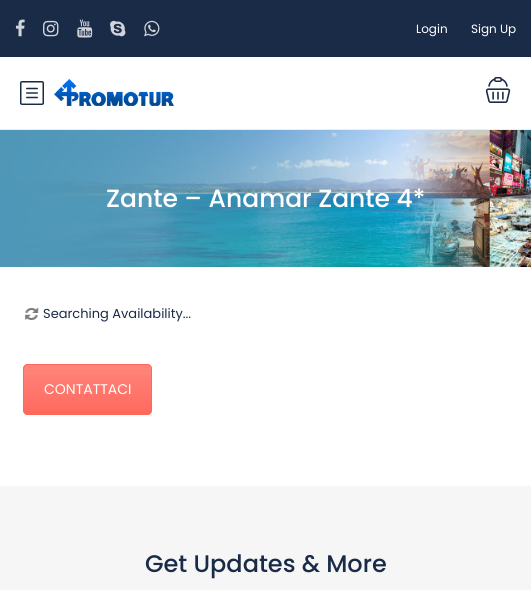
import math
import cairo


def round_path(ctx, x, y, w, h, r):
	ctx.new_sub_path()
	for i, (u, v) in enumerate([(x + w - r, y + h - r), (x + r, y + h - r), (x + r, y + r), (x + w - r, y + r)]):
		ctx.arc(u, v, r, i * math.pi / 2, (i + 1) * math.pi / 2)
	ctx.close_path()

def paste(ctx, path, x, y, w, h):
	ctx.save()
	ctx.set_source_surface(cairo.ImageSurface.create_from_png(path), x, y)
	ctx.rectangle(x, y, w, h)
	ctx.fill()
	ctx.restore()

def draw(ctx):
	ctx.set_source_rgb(1, 1, 1)
	ctx.paint()
	ctx.set_source_rgb(0.102, 0.169, 0.282)
	ctx.rectangle(0, 0, 531, 57)
	ctx.fill()
	paste(ctx, 'media/1.png', 15, 19, 10, 18)
	paste(ctx, 'media/2.png', 43, 20, 16, 17)
	paste(ctx, 'media/3.png', 77, 19, 16, 19)
	paste(ctx, 'media/4.png', 110, 20, 16, 17)
	paste(ctx, 'media/5.png', 144, 20, 16, 17)
	ctx.select_font_face('Poppins')
	ctx.set_font_size(12)
	ctx.set_source_rgb(1, 1, 1)
	ctx.move_to(416, 33)
	ctx.show_text('Login')
	ctx.move_to(471, 33)
	ctx.show_text('Sign Up')
	ctx.set_source_rgb(0.918, 0.933, 0.953)
	ctx.rectangle(0, 129, 531, 1)
	ctx.fill()
	paste(ctx, 'media/6.png', 20, 81, 24, 24)
	paste(ctx, 'media/7.png', 54, 79, 120, 27)
	paste(ctx, 'media/8.png', 485, 77, 26, 26)
	paste(ctx, 'media/9.png', 0, 130, 531, 137)
	ctx.select_font_face('Poppins Medium')
	ctx.set_font_size(25)
	ctx.set_source_rgb(1, 1, 1)
	ctx.move_to(106, 207)
	ctx.show_text('Zante – Anamar Zante 4*')
	paste(ctx, 'media/10.png', 25, 307, 14, 13)
	ctx.select_font_face('Poppins')
	ctx.set_font_size(13)
	ctx.set_source_rgb(0.102, 0.169, 0.282)
	ctx.move_to(43, 318)
	ctx.show_text('Searching Availability...')
	ctx.set_source_rgb(1, 0.404, 0.357)
	round_path(ctx, 23, 364, 129, 51, 5)
	ctx.fill()
	ctx.save()
	round_path(ctx, 23, 364, 129, 51, 5)
	ctx.clip()
	gradient = cairo.LinearGradient(88, 365, 88, 414)
	gradient.add_color_stop_rgba(0, 1, 1, 1, 0.2)
	gradient.add_color_stop_rgba(1, 1, 1, 1, 0.01)
	ctx.set_source(gradient)
	ctx.rectangle(23, 365, 129, 46)
	ctx.fill()
	ctx.restore()
	round_path(ctx, 23.5, 364.5, 128, 50, 4.5)
	ctx.set_line_width(1)
	ctx.stroke()
	ctx.set_font_size(14)
	ctx.set_source_rgb(1, 1, 1)
	ctx.move_to(44, 394)
	ctx.show_text('CONTATTACI')
	ctx.set_source_rgb(0.961, 0.961, 0.961)
	ctx.rectangle(0, 486, 531, 104)
	ctx.fill()
	ctx.select_font_face('Poppins Medium')
	ctx.set_font_size(24)
	ctx.set_source_rgb(0.102, 0.169, 0.282)
	ctx.move_to(145, 572)
	ctx.show_text('Get Updates & More')


surface = cairo.ImageSurface(cairo.FORMAT_RGB24, 531, 590)
ctx = cairo.Context(surface)
options = cairo.FontOptions()
options.set_hint_metrics(cairo.HINT_METRICS_OFF)
options.set_hint_style(cairo.HINT_STYLE_NONE)
ctx.set_font_options(options)
ctx.set_miter_limit(4)
draw(ctx)
surface.write_to_png('image.png')
